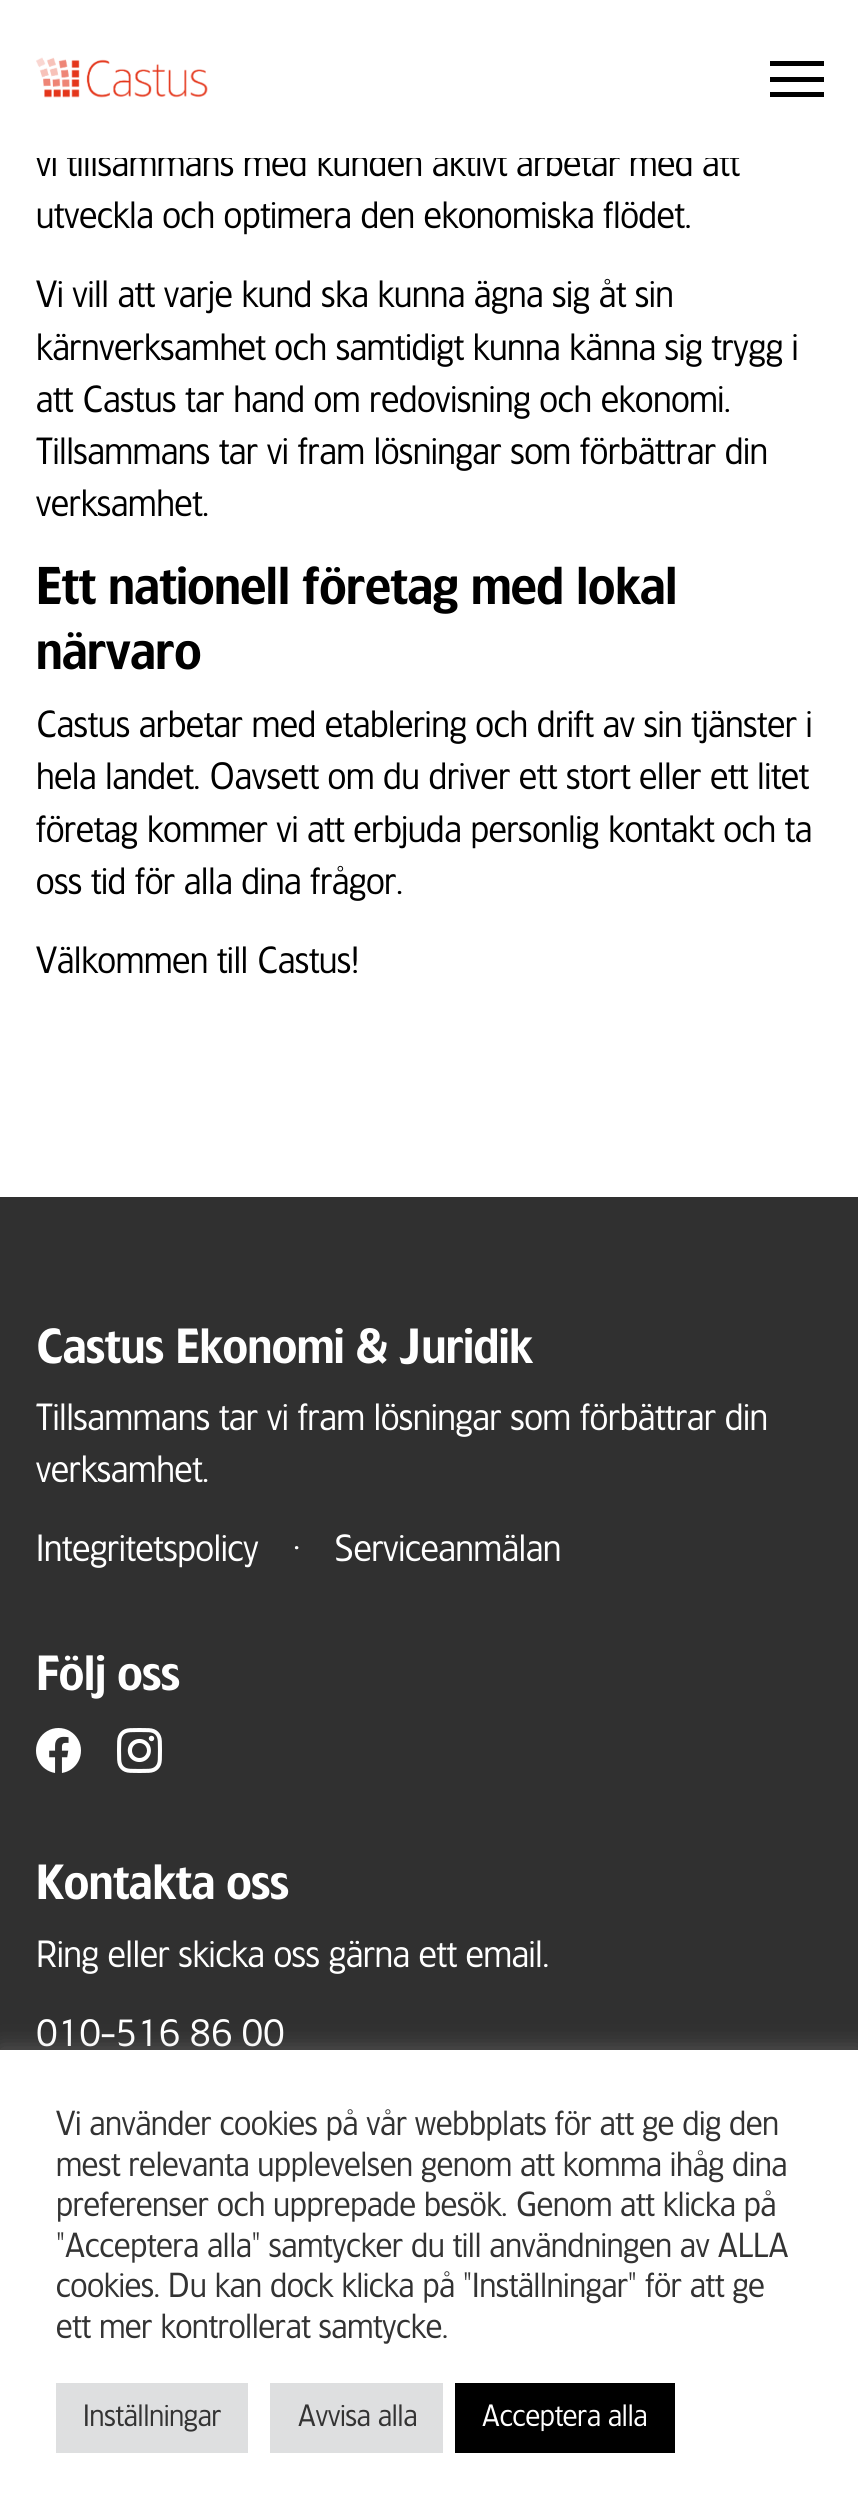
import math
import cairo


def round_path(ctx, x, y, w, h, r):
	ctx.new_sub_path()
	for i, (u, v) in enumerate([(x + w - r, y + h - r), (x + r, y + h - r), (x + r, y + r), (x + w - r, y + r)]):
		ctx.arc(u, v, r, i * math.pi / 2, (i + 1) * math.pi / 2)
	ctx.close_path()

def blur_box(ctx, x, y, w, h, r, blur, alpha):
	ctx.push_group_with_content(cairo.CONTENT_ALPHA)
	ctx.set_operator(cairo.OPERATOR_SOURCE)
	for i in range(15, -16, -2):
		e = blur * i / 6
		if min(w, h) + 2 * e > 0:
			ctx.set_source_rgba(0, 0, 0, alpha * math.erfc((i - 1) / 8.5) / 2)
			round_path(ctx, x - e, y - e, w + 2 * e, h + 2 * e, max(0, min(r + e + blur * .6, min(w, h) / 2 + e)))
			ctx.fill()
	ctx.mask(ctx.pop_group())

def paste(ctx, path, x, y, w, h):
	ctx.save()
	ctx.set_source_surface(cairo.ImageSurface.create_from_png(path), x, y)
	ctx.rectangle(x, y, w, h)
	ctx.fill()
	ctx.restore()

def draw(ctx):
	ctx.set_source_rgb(1, 1, 1)
	ctx.paint()
	ctx.select_font_face('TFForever')
	ctx.set_font_size(36)
	ctx.set_source_rgb(0, 0, 0)
	ctx.move_to(36, 176)
	ctx.show_text('vi tillsammans med kunden aktivt arbetar med att')
	ctx.set_source_rgb(1, 1, 1)
	ctx.rectangle(36, 149, 704, 9)
	ctx.fill()
	paste(ctx, 'media/1.png', 36, 57, 172, 41)
	ctx.set_source_rgb(0, 0, 0)
	ctx.rectangle(770, 61, 54, 5)
	ctx.rectangle(770, 77, 54, 5)
	ctx.rectangle(770, 92, 54, 5)
	ctx.fill()
	for x, y, s in [
		(36, 228, 'utveckla och optimera den ekonomiska flödet.'),
		(36, 307, 'Vi vill att varje kund ska kunna ägna sig åt sin'),
		(36, 360, 'kärnverksamhet och samtidigt kunna känna sig trygg i'),
		(36, 412, 'att Castus tar hand om redovisning och ekonomi.'),
		(36, 464, 'Tillsammans tar vi fram lösningar som förbättrar din'),
		(36, 516, 'verksamhet.'),
	]:
		ctx.move_to(x, y)
		ctx.show_text(s)
	ctx.select_font_face('TFForever SemiBold')
	ctx.set_font_size(49.9)
	ctx.move_to(36, 604)
	ctx.show_text('Ett nationell företag med lokal')
	ctx.move_to(36, 669)
	ctx.show_text('närvaro')
	ctx.select_font_face('TFForever')
	ctx.set_font_size(36)
	for x, y, s in [
		(36, 737, 'Castus arbetar med etablering och drift av sin tjänster i'),
		(36, 789, 'hela landet. Oavsett om du driver ett stort eller ett litet'),
		(36, 842, 'företag kommer vi att erbjuda personlig kontakt och ta'),
		(36, 894, 'oss tid för alla dina frågor.'),
		(36, 973, 'Välkommen till Castus!'),
	]:
		ctx.move_to(x, y)
		ctx.show_text(s)
	ctx.set_source_rgb(0.188, 0.188, 0.188)
	ctx.rectangle(0, 1197, 858, 853)
	ctx.fill()
	ctx.select_font_face('TFForever SemiBold')
	ctx.set_font_size(46.4)
	ctx.set_source_rgb(1, 1, 1)
	ctx.move_to(36, 1363)
	ctx.show_text('Castus Ekonomi & Juridik')
	ctx.select_font_face('TFForever')
	ctx.set_font_size(36)
	for x, y, s in [
		(36, 1430, 'Tillsammans tar vi fram lösningar som förbättrar din'),
		(36, 1482, 'verksamhet.'),
		(36, 1561, 'Integritetspolicy'),
		(286, 1561, '·'),
		(334, 1561, 'Serviceanmälan'),
	]:
		ctx.move_to(x, y)
		ctx.show_text(s)
	ctx.select_font_face('TFForever SemiBold')
	ctx.set_font_size(46.4)
	ctx.move_to(36, 1690)
	ctx.show_text('Följ oss')
	paste(ctx, 'media/2.png', 36, 1728, 45, 45)
	paste(ctx, 'media/3.png', 117, 1728, 45, 45)
	ctx.move_to(36, 1899)
	ctx.show_text('Kontakta oss')
	ctx.select_font_face('TFForever')
	ctx.set_font_size(36)
	ctx.move_to(36, 1967)
	ctx.show_text('Ring eller skicka oss gärna ett email.')
	ctx.move_to(36, 2046)
	ctx.show_text('010-516 86 00')
	ctx.set_source_rgb(0.675, 0.671, 0.671)
	blur_box(ctx, 0, 2048, 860, 470, 0, 11, 0.3)
	ctx.set_source_rgb(1, 1, 1)
	ctx.rectangle(0, 2050, 858, 468)
	ctx.fill()
	ctx.set_font_size(33)
	ctx.set_source_rgb(0.2, 0.2, 0.2)
	for x, y, s in [
		(56, 2135, 'Vi använder cookies på vår webbplats för att ge dig den'),
		(56, 2176, 'mest relevanta upplevelsen genom att komma ihåg dina'),
		(56, 2216, 'preferenser och upprepade besök. Genom att klicka på'),
		(56, 2257, '"Acceptera alla" samtycker du till användningen av ALLA'),
		(56, 2297, 'cookies. Du kan dock klicka på "Inställningar" för att ge'),
		(56, 2338, 'ett mer kontrollerat samtycke.'),
	]:
		ctx.move_to(x, y)
		ctx.show_text(s)
	ctx.set_source_rgb(0.871, 0.875, 0.878)
	ctx.rectangle(56, 2383, 192, 70)
	ctx.fill()
	ctx.set_font_size(29.25)
	ctx.set_source_rgb(0.2, 0.2, 0.2)
	ctx.move_to(83, 2426)
	ctx.show_text('Inställningar')
	ctx.set_source_rgb(0.871, 0.875, 0.878)
	ctx.rectangle(270, 2383, 173, 70)
	ctx.fill()
	ctx.set_source_rgb(0.2, 0.2, 0.2)
	ctx.move_to(298, 2426)
	ctx.show_text('Avvisa alla')
	ctx.set_source_rgb(0, 0, 0)
	ctx.rectangle(455, 2383, 220, 70)
	ctx.fill()
	ctx.set_source_rgb(1, 1, 1)
	ctx.move_to(482, 2426)
	ctx.show_text('Acceptera alla')


surface = cairo.ImageSurface(cairo.FORMAT_RGB24, 858, 2518)
ctx = cairo.Context(surface)
options = cairo.FontOptions()
options.set_hint_metrics(cairo.HINT_METRICS_OFF)
options.set_hint_style(cairo.HINT_STYLE_NONE)
ctx.set_font_options(options)
ctx.set_miter_limit(4)
draw(ctx)
surface.write_to_png('image.png')
